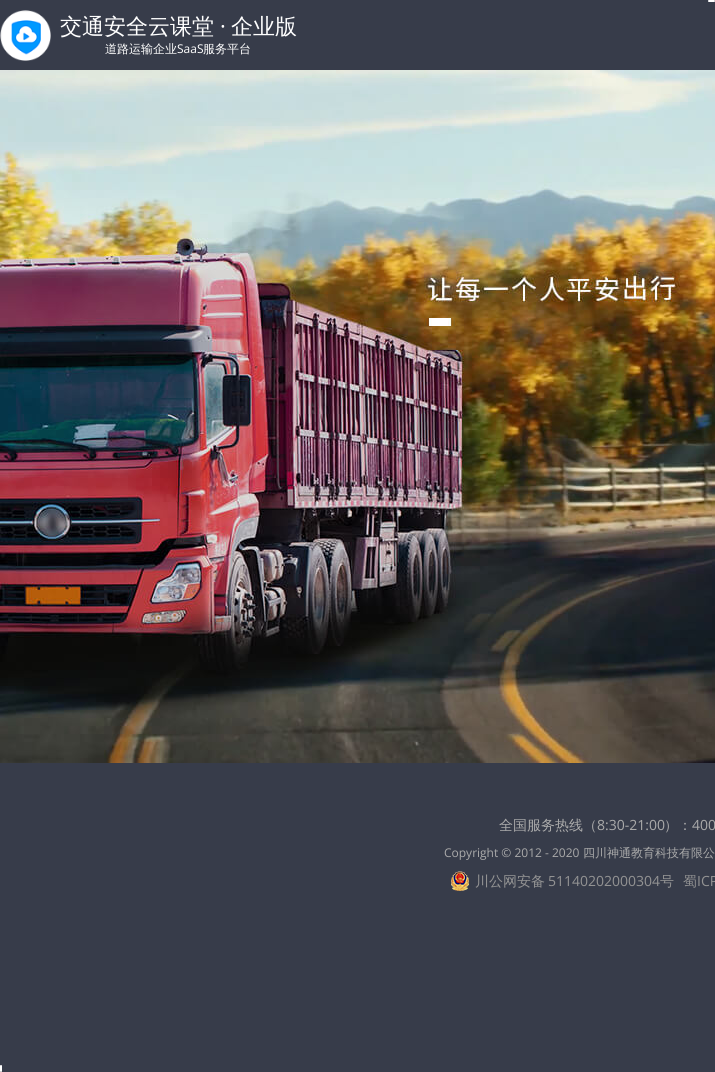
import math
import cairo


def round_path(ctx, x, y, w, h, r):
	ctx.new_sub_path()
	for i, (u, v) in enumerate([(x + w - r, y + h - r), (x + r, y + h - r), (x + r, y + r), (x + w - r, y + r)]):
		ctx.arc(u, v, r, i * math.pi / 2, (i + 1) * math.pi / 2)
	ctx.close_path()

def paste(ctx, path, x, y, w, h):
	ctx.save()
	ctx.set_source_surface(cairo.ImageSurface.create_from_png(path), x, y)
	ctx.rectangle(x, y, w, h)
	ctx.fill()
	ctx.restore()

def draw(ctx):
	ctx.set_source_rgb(0.216, 0.235, 0.29)
	ctx.paint()
	ctx.set_source_rgb(1, 1, 1)
	round_path(ctx, 708, 0, 7, 2, 1)
	ctx.fill()
	paste(ctx, 'media/1.png', 0, 10, 51, 51)
	ctx.select_font_face('WenQuanYi Zen Hei Medium')
	ctx.set_font_size(22)
	ctx.move_to(60, 34)
	ctx.show_text('交通安全云课堂')
	ctx.select_font_face('Open Sans')
	ctx.move_to(220, 34)
	ctx.show_text('·')
	ctx.select_font_face('WenQuanYi Zen Hei Medium')
	ctx.move_to(231, 34)
	ctx.show_text('企业版')
	ctx.set_font_size(12)
	ctx.move_to(105, 53)
	ctx.show_text('道路运输企业')
	ctx.select_font_face('Open Sans')
	ctx.move_to(177, 53)
	ctx.show_text('SaaS')
	ctx.select_font_face('WenQuanYi Zen Hei Medium')
	ctx.move_to(203, 53)
	ctx.show_text('服务平台')
	paste(ctx, 'media/2.png', 0, 70, 715, 693)
	ctx.set_font_size(14)
	ctx.set_source_rgb(0.667, 0.667, 0.667)
	ctx.move_to(499, 830)
	ctx.show_text('全国服务热线（')
	ctx.select_font_face('Open Sans')
	ctx.move_to(597, 830)
	ctx.show_text('8:30-21:00')
	ctx.select_font_face('WenQuanYi Zen Hei Medium')
	ctx.move_to(664, 830)
	ctx.show_text('）：')
	ctx.select_font_face('Open Sans')
	ctx.move_to(692, 830)
	ctx.show_text('400')
	ctx.set_font_size(12)
	ctx.move_to(444, 857)
	ctx.show_text('Copyright © 2012 - 2020')
	ctx.select_font_face('WenQuanYi Zen Hei Medium')
	ctx.move_to(583, 857)
	ctx.show_text('四川神通教育科技有限公')
	paste(ctx, 'media/3.png', 451, 871, 18, 20)
	ctx.set_font_size(14)
	ctx.set_source_rgb(0.576, 0.576, 0.576)
	ctx.move_to(475, 886)
	ctx.show_text('川公网安备')
	ctx.select_font_face('Open Sans')
	ctx.move_to(548, 886)
	ctx.show_text('51140202000304')
	ctx.select_font_face('WenQuanYi Zen Hei Medium')
	ctx.move_to(660, 886)
	ctx.show_text('号')
	ctx.move_to(683, 886)
	ctx.show_text('蜀')
	ctx.select_font_face('Open Sans')
	ctx.move_to(697, 886)
	ctx.show_text('ICP')
	ctx.set_source_rgb(1, 1, 1)
	round_path(ctx, 0, 1065, 2, 7, 1)
	ctx.fill()


surface = cairo.ImageSurface(cairo.FORMAT_RGB24, 715, 1072)
ctx = cairo.Context(surface)
options = cairo.FontOptions()
options.set_hint_metrics(cairo.HINT_METRICS_OFF)
options.set_hint_style(cairo.HINT_STYLE_NONE)
ctx.set_font_options(options)
ctx.set_miter_limit(4)
draw(ctx)
surface.write_to_png('image.png')
